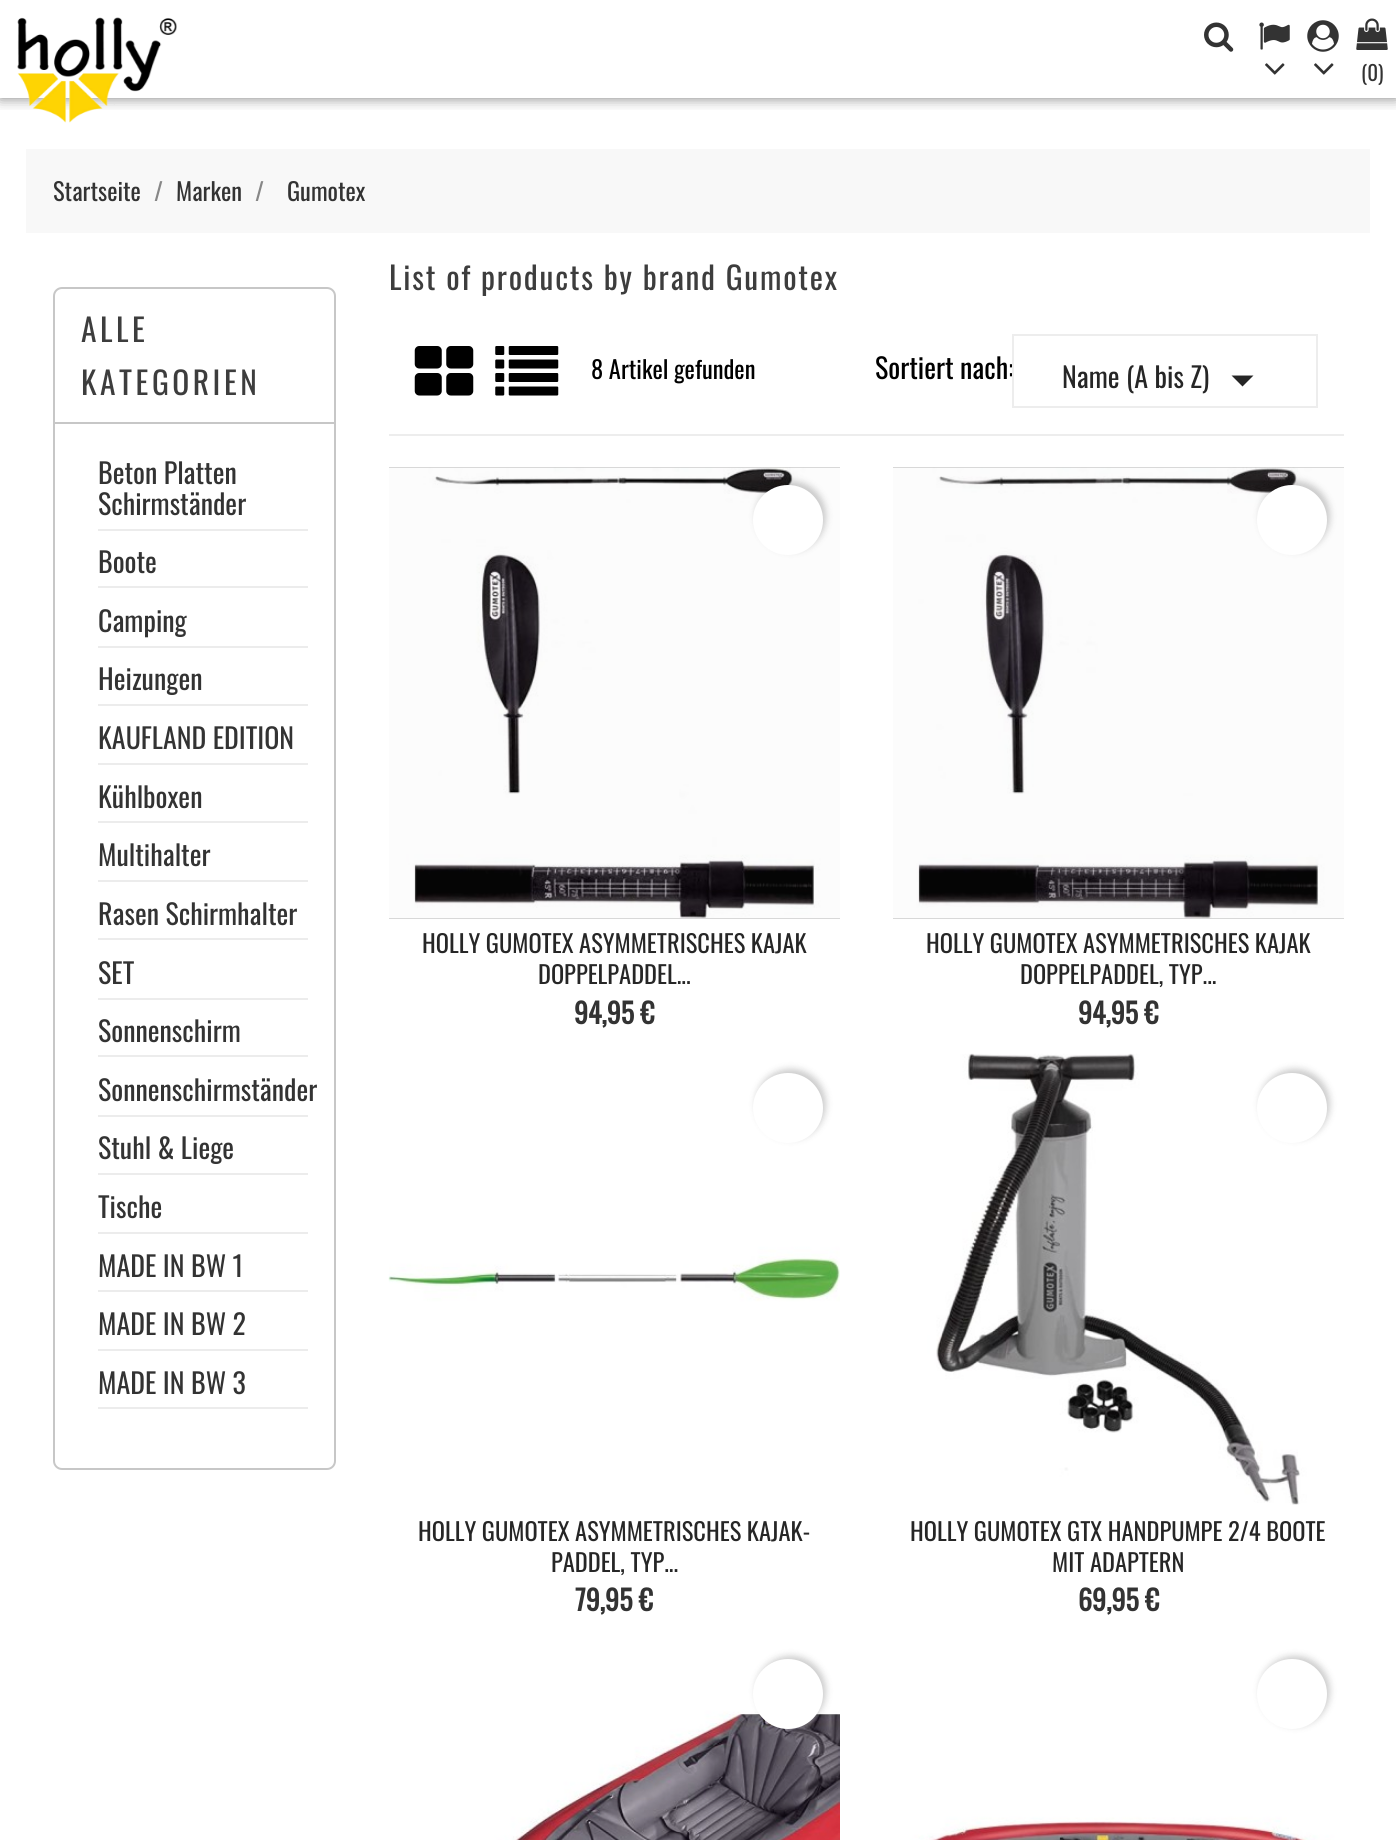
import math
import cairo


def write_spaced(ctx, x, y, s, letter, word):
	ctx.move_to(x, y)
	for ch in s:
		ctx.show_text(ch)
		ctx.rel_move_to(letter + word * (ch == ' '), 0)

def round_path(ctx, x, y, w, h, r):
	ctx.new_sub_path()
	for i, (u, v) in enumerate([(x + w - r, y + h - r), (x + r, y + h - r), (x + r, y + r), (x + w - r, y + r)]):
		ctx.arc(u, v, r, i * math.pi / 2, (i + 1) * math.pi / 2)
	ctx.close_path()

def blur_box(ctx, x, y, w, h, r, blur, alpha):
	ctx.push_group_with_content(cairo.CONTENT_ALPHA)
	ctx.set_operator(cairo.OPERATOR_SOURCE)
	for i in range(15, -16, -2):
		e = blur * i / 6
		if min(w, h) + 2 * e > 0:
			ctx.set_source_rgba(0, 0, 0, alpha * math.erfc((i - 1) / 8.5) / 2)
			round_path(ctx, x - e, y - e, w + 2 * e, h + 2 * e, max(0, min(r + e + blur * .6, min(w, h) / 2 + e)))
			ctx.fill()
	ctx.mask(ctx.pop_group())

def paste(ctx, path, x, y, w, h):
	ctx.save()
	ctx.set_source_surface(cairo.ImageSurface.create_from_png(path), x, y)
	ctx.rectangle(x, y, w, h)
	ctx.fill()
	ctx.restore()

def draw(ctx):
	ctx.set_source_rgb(1, 1, 1)
	ctx.paint()
	ctx.save()
	ctx.rectangle(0, 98, 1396, 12)
	ctx.clip()
	ctx.set_source_rgb(0, 0, 0)
	blur_box(ctx, 0, 0, 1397, 98, 0, 7, 0.5)
	ctx.restore()
	paste(ctx, 'media/1.png', 17, 17, 160, 106)
	paste(ctx, 'media/2.png', 1204, 22, 30, 30)
	paste(ctx, 'media/3.png', 1259, 22, 31, 28)
	paste(ctx, 'media/4.png', 1265, 63, 20, 12)
	paste(ctx, 'media/5.png', 1307, 20, 32, 32)
	paste(ctx, 'media/4.png', 1314, 63, 20, 12)
	paste(ctx, 'media/6.png', 1356, 18, 32, 32)
	ctx.select_font_face('Oswald')
	ctx.set_font_size(21)
	ctx.set_source_rgb(0.2, 0.2, 0.2)
	ctx.move_to(1361, 81)
	ctx.show_text('(0)')
	ctx.set_source_rgb(0.969, 0.969, 0.969)
	ctx.rectangle(26, 149, 1344, 84)
	ctx.fill()
	ctx.set_font_size(24.5)
	ctx.set_source_rgb(0.2, 0.2, 0.2)
	ctx.move_to(53, 201)
	ctx.show_text('Startseite')
	ctx.set_source_rgb(0.529, 0.529, 0.529)
	ctx.move_to(154, 201)
	ctx.show_text('/')
	ctx.set_source_rgb(0.2, 0.2, 0.2)
	ctx.move_to(176, 201)
	ctx.show_text('Marken')
	ctx.set_source_rgb(0.529, 0.529, 0.529)
	ctx.move_to(255, 201)
	ctx.show_text('/')
	ctx.set_source_rgb(0.2, 0.2, 0.2)
	ctx.move_to(287, 201)
	ctx.show_text('Gumotex')
	round_path(ctx, 54, 288, 281, 1181, 8)
	ctx.set_source_rgb(0.78, 0.78, 0.78)
	ctx.stroke()
	ctx.rectangle(54, 422, 280, 2)
	ctx.fill()
	ctx.set_font_size(31.5)
	ctx.set_source_rgb(0.239, 0.239, 0.239)
	write_spaced(ctx, 81, 342, 'ALLE', 3.5, 0)
	write_spaced(ctx, 81, 395, 'KATEGORIEN', 3.5, 0)
	ctx.set_source_rgb(0.922, 0.922, 0.922)
	ctx.rectangle(98, 529, 210, 2)
	ctx.fill()
	ctx.set_font_size(28)
	ctx.set_source_rgb(0.2, 0.2, 0.2)
	ctx.move_to(98, 484)
	ctx.show_text('Beton Platten')
	ctx.move_to(98, 515)
	ctx.show_text('Schirmständer')
	ctx.set_source_rgb(0.922, 0.922, 0.922)
	ctx.rectangle(98, 586, 210, 2)
	ctx.fill()
	ctx.set_source_rgb(0.2, 0.2, 0.2)
	ctx.move_to(98, 573)
	ctx.show_text('Boote')
	ctx.set_source_rgb(0.922, 0.922, 0.922)
	ctx.rectangle(98, 646, 210, 2)
	ctx.fill()
	ctx.set_source_rgb(0.2, 0.2, 0.2)
	ctx.move_to(98, 632)
	ctx.show_text('Camping')
	ctx.set_source_rgb(0.922, 0.922, 0.922)
	ctx.rectangle(98, 704, 210, 2)
	ctx.fill()
	ctx.set_source_rgb(0.2, 0.2, 0.2)
	ctx.move_to(98, 690)
	ctx.show_text('Heizungen')
	ctx.set_source_rgb(0.922, 0.922, 0.922)
	ctx.rectangle(98, 763, 210, 2)
	ctx.fill()
	ctx.set_source_rgb(0.2, 0.2, 0.2)
	ctx.move_to(98, 749)
	ctx.show_text('KAUFLAND EDITION')
	ctx.set_source_rgb(0.922, 0.922, 0.922)
	ctx.rectangle(98, 821, 210, 2)
	ctx.fill()
	ctx.set_source_rgb(0.2, 0.2, 0.2)
	ctx.move_to(98, 808)
	ctx.show_text('Kühlboxen')
	ctx.set_source_rgb(0.922, 0.922, 0.922)
	ctx.rectangle(98, 880, 210, 2)
	ctx.fill()
	ctx.set_source_rgb(0.2, 0.2, 0.2)
	ctx.move_to(98, 866)
	ctx.show_text('Multihalter')
	ctx.set_source_rgb(0.922, 0.922, 0.922)
	ctx.rectangle(98, 938, 210, 2)
	ctx.fill()
	ctx.set_source_rgb(0.2, 0.2, 0.2)
	ctx.move_to(98, 925)
	ctx.show_text('Rasen Schirmhalter')
	ctx.set_source_rgb(0.922, 0.922, 0.922)
	ctx.rectangle(98, 998, 210, 2)
	ctx.fill()
	ctx.set_source_rgb(0.2, 0.2, 0.2)
	ctx.move_to(98, 984)
	ctx.show_text('SET')
	ctx.set_source_rgb(0.922, 0.922, 0.922)
	ctx.rectangle(98, 1055, 210, 2)
	ctx.fill()
	ctx.set_source_rgb(0.2, 0.2, 0.2)
	ctx.move_to(98, 1042)
	ctx.show_text('Sonnenschirm')
	ctx.set_source_rgb(0.922, 0.922, 0.922)
	ctx.rectangle(98, 1115, 210, 2)
	ctx.fill()
	ctx.set_source_rgb(0.2, 0.2, 0.2)
	ctx.move_to(98, 1101)
	ctx.show_text('Sonnenschirmständer')
	ctx.set_source_rgb(0.922, 0.922, 0.922)
	ctx.rectangle(98, 1173, 210, 2)
	ctx.fill()
	ctx.set_source_rgb(0.2, 0.2, 0.2)
	ctx.move_to(98, 1159)
	ctx.show_text('Stuhl & Liege')
	ctx.set_source_rgb(0.922, 0.922, 0.922)
	ctx.rectangle(98, 1232, 210, 2)
	ctx.fill()
	ctx.set_source_rgb(0.2, 0.2, 0.2)
	ctx.move_to(98, 1218)
	ctx.show_text('Tische')
	ctx.set_source_rgb(0.922, 0.922, 0.922)
	ctx.rectangle(98, 1290, 210, 2)
	ctx.fill()
	ctx.set_source_rgb(0.2, 0.2, 0.2)
	ctx.move_to(98, 1277)
	ctx.show_text('MADE IN BW 1')
	ctx.set_source_rgb(0.922, 0.922, 0.922)
	ctx.rectangle(98, 1349, 210, 2)
	ctx.fill()
	ctx.set_source_rgb(0.2, 0.2, 0.2)
	ctx.move_to(98, 1335)
	ctx.show_text('MADE IN BW 2')
	ctx.set_source_rgb(0.922, 0.922, 0.922)
	ctx.rectangle(98, 1407, 210, 2)
	ctx.fill()
	ctx.set_source_rgb(0.2, 0.2, 0.2)
	ctx.move_to(98, 1394)
	ctx.show_text('MADE IN BW 3')
	ctx.set_font_size(31.5)
	ctx.set_source_rgb(0.239, 0.239, 0.239)
	write_spaced(ctx, 389, 290, 'List of products by brand Gumotex', 1.75, 0)
	ctx.set_source_rgb(0.929, 0.929, 0.929)
	ctx.rectangle(389, 434, 955, 2)
	ctx.fill()
	paste(ctx, 'media/7.png', 414, 346, 60, 50)
	paste(ctx, 'media/8.png', 495, 346, 64, 50)
	ctx.set_font_size(24.5)
	ctx.set_source_rgb(0, 0, 0)
	ctx.move_to(591, 379)
	ctx.show_text('8 Artikel gefunden')
	ctx.set_font_size(28)
	ctx.move_to(875, 379)
	ctx.show_text('Sortiert nach:')
	ctx.rectangle(1013, 335, 304, 72)
	ctx.set_source_rgb(0.929, 0.929, 0.929)
	ctx.stroke()
	ctx.set_source_rgb(0.149, 0.149, 0.149)
	ctx.move_to(1062, 388)
	ctx.show_text('Name (A bis Z)')
	ctx.new_path()
	ctx.move_to(1231.5, 375.5)
	ctx.line_to(1253.5, 375.5)
	ctx.line_to(1242.5, 386.5)
	ctx.close_path()
	ctx.fill()
	ctx.set_source_rgb(0.667, 0.667, 0.667)
	ctx.rectangle(389, 467, 451, 452)
	ctx.fill()
	paste(ctx, 'media/9.png', 389, 467, 451, 452)
	ctx.set_source_rgb(0, 0, 0)
	blur_box(ctx, 756, 481, 70, 70, 35, 3.5, 0.2)
	ctx.set_source_rgb(1, 1, 1)
	ctx.arc(788, 520, 35, 0, 2 * math.pi)
	ctx.fill()
	ctx.set_font_size(24.5)
	ctx.set_source_rgb(0.149, 0.149, 0.149)
	ctx.move_to(422, 953)
	ctx.show_text('HOLLY GUMOTEX ASYMMETRISCHES KAJAK')
	ctx.move_to(538, 984)
	ctx.show_text('DOPPELPADDEL...')
	ctx.select_font_face('Oswald', cairo.FONT_SLANT_NORMAL, cairo.FONT_WEIGHT_BOLD)
	ctx.set_font_size(28)
	ctx.set_source_rgb(0.2, 0.2, 0.2)
	ctx.move_to(574, 1024)
	ctx.show_text('94,95 €')
	ctx.set_source_rgb(0.667, 0.667, 0.667)
	ctx.rectangle(893, 467, 451, 452)
	ctx.fill()
	paste(ctx, 'media/10.png', 893, 467, 451, 452)
	ctx.set_source_rgb(0, 0, 0)
	blur_box(ctx, 1260, 481, 70, 70, 35, 3.5, 0.2)
	ctx.set_source_rgb(1, 1, 1)
	ctx.arc(1292, 520, 35, 0, 2 * math.pi)
	ctx.fill()
	ctx.select_font_face('Oswald')
	ctx.set_font_size(24.5)
	ctx.set_source_rgb(0.149, 0.149, 0.149)
	ctx.move_to(926, 953)
	ctx.show_text('HOLLY GUMOTEX ASYMMETRISCHES KAJAK')
	ctx.move_to(1020, 984)
	ctx.show_text('DOPPELPADDEL, TYP...')
	ctx.select_font_face('Oswald', cairo.FONT_SLANT_NORMAL, cairo.FONT_WEIGHT_BOLD)
	ctx.set_font_size(28)
	ctx.set_source_rgb(0.2, 0.2, 0.2)
	ctx.move_to(1078, 1024)
	ctx.show_text('94,95 €')
	paste(ctx, 'media/11.png', 388, 1054, 452, 451)
	ctx.set_source_rgb(0, 0, 0)
	blur_box(ctx, 756, 1069, 70, 70, 35, 3.5, 0.2)
	ctx.set_source_rgb(1, 1, 1)
	ctx.arc(788, 1108, 35, 0, 2 * math.pi)
	ctx.fill()
	ctx.select_font_face('Oswald')
	ctx.set_font_size(24.5)
	ctx.set_source_rgb(0.149, 0.149, 0.149)
	ctx.move_to(418, 1541)
	ctx.show_text('HOLLY GUMOTEX ASYMMETRISCHES KAJAK-')
	ctx.move_to(551, 1572)
	ctx.show_text('PADDEL, TYP...')
	ctx.select_font_face('Oswald', cairo.FONT_SLANT_NORMAL, cairo.FONT_WEIGHT_BOLD)
	ctx.set_font_size(28)
	ctx.set_source_rgb(0.2, 0.2, 0.2)
	ctx.move_to(575, 1611)
	ctx.show_text('79,95 €')
	paste(ctx, 'media/12.png', 893, 1053, 451, 452)
	ctx.set_source_rgb(0, 0, 0)
	blur_box(ctx, 1260, 1069, 70, 70, 35, 3.5, 0.2)
	ctx.set_source_rgb(1, 1, 1)
	ctx.arc(1292, 1108, 35, 0, 2 * math.pi)
	ctx.fill()
	ctx.select_font_face('Oswald')
	ctx.set_font_size(24.5)
	ctx.set_source_rgb(0.149, 0.149, 0.149)
	ctx.move_to(910, 1541)
	ctx.show_text('HOLLY GUMOTEX GTX HANDPUMPE 2/4 BOOTE')
	ctx.move_to(1052, 1572)
	ctx.show_text('MIT ADAPTERN')
	ctx.select_font_face('Oswald', cairo.FONT_SLANT_NORMAL, cairo.FONT_WEIGHT_BOLD)
	ctx.set_font_size(28)
	ctx.set_source_rgb(0.2, 0.2, 0.2)
	ctx.move_to(1078, 1611)
	ctx.show_text('69,95 €')
	paste(ctx, 'media/13.png', 389, 1642, 451, 198)
	ctx.set_source_rgb(0, 0, 0)
	blur_box(ctx, 756, 1656, 70, 70, 35, 3.5, 0.2)
	ctx.set_source_rgb(1, 1, 1)
	ctx.arc(788, 1694, 35, 0, 2 * math.pi)
	ctx.fill()
	paste(ctx, 'media/14.png', 893, 1642, 451, 198)
	ctx.set_source_rgb(0, 0, 0)
	blur_box(ctx, 1260, 1656, 70, 70, 35, 3.5, 0.2)
	ctx.set_source_rgb(1, 1, 1)
	ctx.arc(1292, 1694, 35, 0, 2 * math.pi)
	ctx.fill()


surface = cairo.ImageSurface(cairo.FORMAT_RGB24, 1396, 1840)
ctx = cairo.Context(surface)
options = cairo.FontOptions()
options.set_hint_metrics(cairo.HINT_METRICS_OFF)
options.set_hint_style(cairo.HINT_STYLE_NONE)
ctx.set_font_options(options)
ctx.set_miter_limit(4)
draw(ctx)
surface.write_to_png('image.png')
